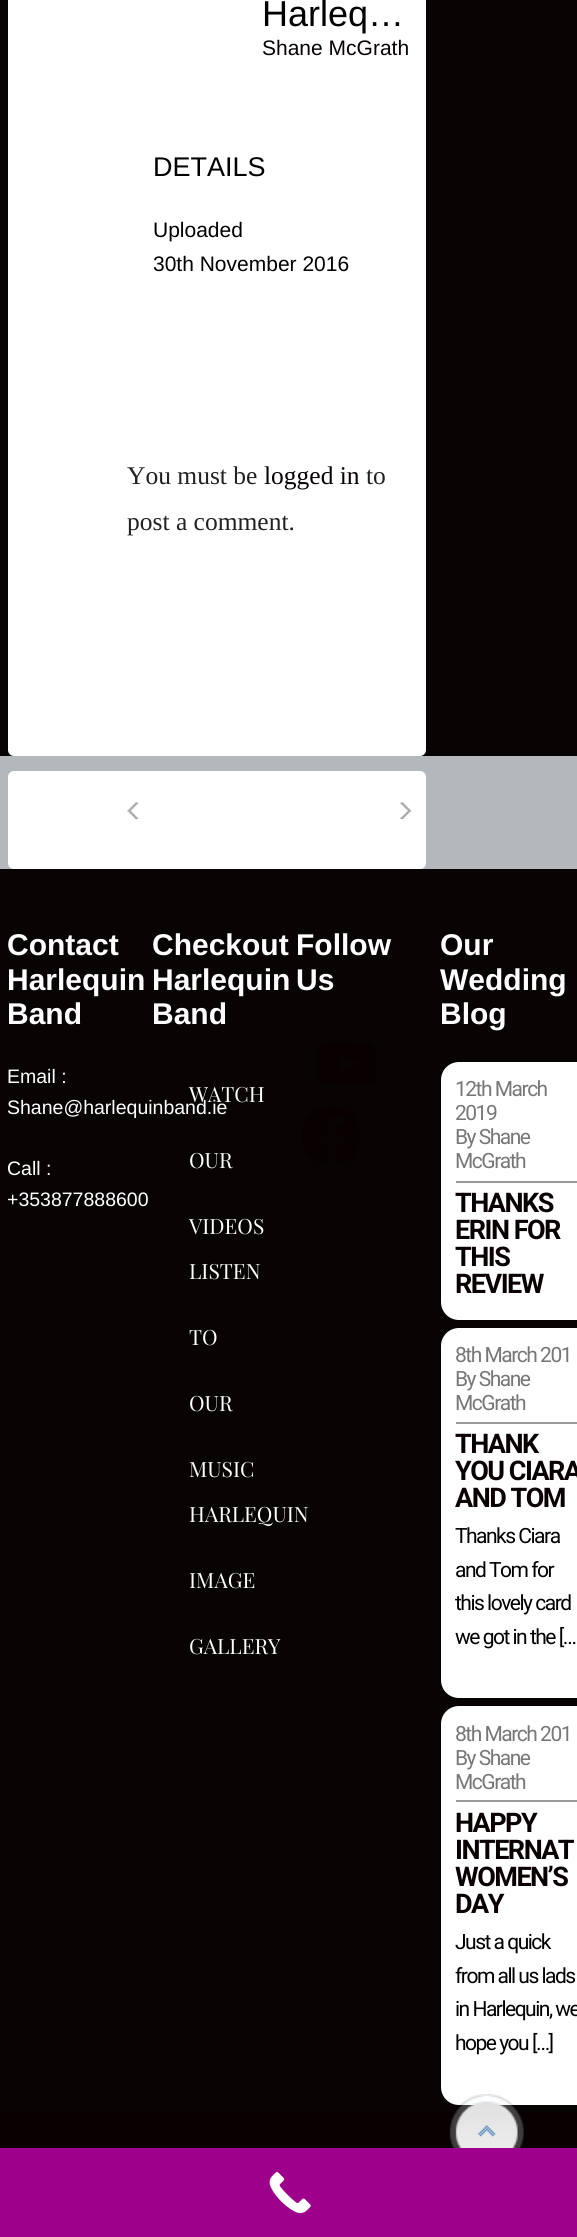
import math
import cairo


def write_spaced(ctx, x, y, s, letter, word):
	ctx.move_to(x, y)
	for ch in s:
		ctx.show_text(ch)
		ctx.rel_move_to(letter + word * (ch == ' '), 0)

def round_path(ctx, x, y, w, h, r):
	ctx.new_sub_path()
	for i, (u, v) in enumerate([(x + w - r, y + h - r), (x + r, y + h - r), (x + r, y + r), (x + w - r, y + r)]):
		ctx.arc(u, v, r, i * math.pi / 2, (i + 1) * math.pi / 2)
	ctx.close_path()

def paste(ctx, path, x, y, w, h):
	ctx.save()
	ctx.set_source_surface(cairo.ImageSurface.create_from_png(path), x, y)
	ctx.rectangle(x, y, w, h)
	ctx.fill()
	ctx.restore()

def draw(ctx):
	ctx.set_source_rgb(0.039, 0.016, 0.016)
	ctx.paint()
	ctx.set_source_rgb(1, 1, 1)
	round_path(ctx, 8, -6, 418, 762, 6)
	ctx.fill()
	ctx.select_font_face('Liberation Sans')
	ctx.set_font_size(36)
	ctx.set_source_rgb(0, 0, 0)
	ctx.move_to(262, 26)
	ctx.show_text('Harleq…')
	ctx.set_font_size(21)
	ctx.set_source_rgb(0.039, 0.004, 0.004)
	ctx.move_to(262, 55)
	ctx.show_text('Shane McGrath')
	ctx.set_font_size(27)
	ctx.set_source_rgb(0, 0, 0)
	ctx.move_to(153, 176)
	ctx.show_text('DETAILS')
	ctx.set_font_size(21)
	ctx.move_to(153, 237)
	ctx.show_text('Uploaded')
	ctx.move_to(153, 271)
	ctx.show_text('30th November 2016')
	ctx.select_font_face('Liberation Serif')
	ctx.set_font_size(25.5)
	ctx.set_source_rgb(0.133, 0.133, 0.133)
	ctx.move_to(127, 484)
	ctx.show_text('You must be')
	ctx.set_source_rgb(0.039, 0.004, 0.004)
	ctx.move_to(264, 484)
	ctx.show_text('logged in')
	ctx.set_source_rgb(0.133, 0.133, 0.133)
	ctx.move_to(366, 484)
	ctx.show_text('to')
	ctx.move_to(127, 530)
	ctx.show_text('post a comment.')
	ctx.set_source_rgb(0.706, 0.722, 0.737)
	ctx.rectangle(0, 756, 577, 113)
	ctx.fill()
	ctx.set_source_rgb(1, 1, 1)
	round_path(ctx, 8, 771, 418, 98, 6)
	ctx.fill()
	paste(ctx, 'media/1.png', 127, 802, 11, 17)
	paste(ctx, 'media/2.png', 400, 802, 11, 17)
	ctx.select_font_face('Liberation Sans', cairo.FONT_SLANT_NORMAL, cairo.FONT_WEIGHT_BOLD)
	ctx.set_font_size(30)
	for x, y, s in [
		(7, 955, 'Contact'),
		(7, 990, 'Harlequin'),
		(7, 1024, 'Band'),
	]:
		ctx.move_to(x, y)
		ctx.show_text(s)
	ctx.select_font_face('Liberation Sans')
	ctx.set_font_size(19.5)
	for x, y, s in [
		(7, 1083, 'Email :'),
		(7, 1114, 'Shane@harlequinband.ie'),
		(7, 1175, 'Call :'),
		(7, 1206, '+353877888600'),
	]:
		ctx.move_to(x, y)
		ctx.show_text(s)
	ctx.select_font_face('Liberation Sans', cairo.FONT_SLANT_NORMAL, cairo.FONT_WEIGHT_BOLD)
	ctx.set_font_size(30)
	for x, y, s in [
		(152, 955, 'Checkout'),
		(152, 990, 'Harlequin'),
		(152, 1024, 'Band'),
	]:
		ctx.move_to(x, y)
		ctx.show_text(s)
	ctx.select_font_face('Playfair Display')
	ctx.set_font_size(21)
	for x, y, s in [
		(189, 1102, 'WATCH'),
		(189, 1168, 'OUR'),
		(189, 1234, 'VIDEOS'),
		(189, 1279, 'LISTEN'),
		(189, 1345, 'TO'),
		(189, 1411, 'OUR'),
		(189, 1477, 'MUSIC'),
		(189, 1522, 'HARLEQUIN'),
		(189, 1588, 'IMAGE'),
		(189, 1654, 'GALLERY'),
	]:
		ctx.move_to(x, y)
		ctx.show_text(s)
	ctx.select_font_face('Liberation Sans', cairo.FONT_SLANT_NORMAL, cairo.FONT_WEIGHT_BOLD)
	ctx.set_font_size(30)
	ctx.move_to(296, 955)
	ctx.show_text('Follow')
	ctx.move_to(296, 990)
	ctx.show_text('Us')
	ctx.set_source_rgb(0.039, 0.004, 0.004)
	ctx.new_path()
	ctx.move_to(376, 1052)
	ctx.curve_to(375, 1042, 368, 1043, 361, 1043)
	ctx.line_to(342, 1042)
	ctx.curve_to(337, 1042, 327, 1042, 322, 1044)
	ctx.curve_to(314, 1047, 316, 1069, 317, 1075)
	ctx.curve_to(318, 1085, 327, 1084, 335, 1084)
	ctx.line_to(351, 1085)
	ctx.curve_to(356, 1084, 366, 1085, 371, 1083)
	ctx.curve_to(379, 1080, 377, 1058, 376, 1052)
	ctx.close_path()
	ctx.move_to(340, 1071)
	ctx.line_to(340, 1054)
	ctx.line_to(357, 1063)
	ctx.close_path()
	ctx.fill()
	ctx.new_path()
	ctx.move_to(332, 1106)
	ctx.curve_to(295, 1106, 291, 1159, 327, 1165)
	ctx.line_to(327, 1144)
	ctx.line_to(319, 1144)
	ctx.line_to(319, 1136)
	ctx.line_to(327, 1136)
	ctx.line_to(327, 1126)
	ctx.curve_to(328, 1117, 337, 1116, 345, 1118)
	ctx.line_to(345, 1125)
	ctx.curve_to(336, 1125, 336, 1127, 336, 1136)
	ctx.line_to(344, 1136)
	ctx.line_to(343, 1144)
	ctx.line_to(336, 1144)
	ctx.line_to(336, 1165)
	ctx.curve_to(372, 1159, 368, 1106, 332, 1106)
	ctx.close_path()
	ctx.fill()
	ctx.set_source_rgb(1, 1, 1)
	for x, y, s in [
		(440, 955, 'Our'),
		(440, 990, 'Wedding'),
		(440, 1024, 'Blog'),
	]:
		ctx.move_to(x, y)
		ctx.show_text(s)
	ctx.new_path()
	ctx.move_to(459, 1062)
	ctx.line_to(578, 1062)
	ctx.line_to(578, 1320)
	ctx.line_to(459, 1320)
	ctx.curve_to(449, 1320, 441, 1312, 441, 1302)
	ctx.line_to(441, 1080)
	ctx.curve_to(441, 1070, 449, 1062, 459, 1062)
	ctx.close_path()
	ctx.fill()
	ctx.select_font_face('Roboto')
	ctx.set_font_size(21)
	ctx.set_source_rgb(0.467, 0.467, 0.467)
	for x, y, s in [
		(455, 1096, '12th March'),
		(455, 1120, '2019'),
		(455, 1144, 'By Shane'),
		(455, 1168, 'McGrath'),
	]:
		write_spaced(ctx, x, y, s, -1.5, 0)
	ctx.set_source_rgb(0.6, 0.6, 0.6)
	ctx.rectangle(456, 1181, 121, 2)
	ctx.fill()
	ctx.select_font_face('Roboto', cairo.FONT_SLANT_NORMAL, cairo.FONT_WEIGHT_BOLD)
	ctx.set_font_size(27)
	ctx.set_source_rgb(0.039, 0.004, 0.004)
	for x, y, s in [
		(455, 1212, 'THANKS'),
		(455, 1239, 'ERIN FOR'),
		(455, 1266, 'THIS'),
		(455, 1293, 'REVIEW'),
	]:
		write_spaced(ctx, x, y, s, -1.5, 0)
	ctx.set_source_rgb(1, 1, 1)
	ctx.new_path()
	ctx.move_to(459, 1328)
	ctx.line_to(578, 1328)
	ctx.line_to(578, 1698)
	ctx.line_to(459, 1698)
	ctx.curve_to(449, 1698, 441, 1690, 441, 1680)
	ctx.line_to(441, 1346)
	ctx.curve_to(441, 1336, 449, 1328, 459, 1328)
	ctx.close_path()
	ctx.fill()
	ctx.select_font_face('Roboto')
	ctx.set_font_size(21)
	ctx.set_source_rgb(0.467, 0.467, 0.467)
	for x, y, s in [
		(455, 1362, '8th March 201'),
		(455, 1386, 'By Shane'),
		(455, 1410, 'McGrath'),
	]:
		write_spaced(ctx, x, y, s, -1.5, 0)
	ctx.set_source_rgb(0.6, 0.6, 0.6)
	ctx.rectangle(456, 1422, 121, 2)
	ctx.fill()
	ctx.select_font_face('Roboto', cairo.FONT_SLANT_NORMAL, cairo.FONT_WEIGHT_BOLD)
	ctx.set_font_size(27)
	ctx.set_source_rgb(0.039, 0.004, 0.004)
	for x, y, s in [
		(455, 1453, 'THANK'),
		(455, 1480, 'YOU CIARA'),
		(455, 1507, 'AND TOM'),
	]:
		write_spaced(ctx, x, y, s, -1.5, 0)
	ctx.select_font_face('Roboto')
	ctx.set_font_size(21)
	ctx.set_source_rgb(0, 0, 0)
	for x, y, s in [
		(455, 1543, 'Thanks Ciara'),
		(455, 1577, 'and Tom for'),
		(455, 1610, 'this lovely card'),
		(455, 1644, 'we got in the […'),
	]:
		write_spaced(ctx, x, y, s, -1.5, 0)
	ctx.set_source_rgb(1, 1, 1)
	ctx.new_path()
	ctx.move_to(459, 1706)
	ctx.line_to(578, 1706)
	ctx.line_to(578, 2105)
	ctx.line_to(459, 2105)
	ctx.curve_to(449, 2105, 441, 2097, 441, 2087)
	ctx.line_to(441, 1724)
	ctx.curve_to(441, 1714, 449, 1706, 459, 1706)
	ctx.close_path()
	ctx.fill()
	ctx.set_source_rgb(0.467, 0.467, 0.467)
	for x, y, s in [
		(455, 1741, '8th March 201'),
		(455, 1765, 'By Shane'),
		(455, 1789, 'McGrath'),
	]:
		write_spaced(ctx, x, y, s, -1.5, 0)
	ctx.set_source_rgb(0.6, 0.6, 0.6)
	ctx.rectangle(456, 1800, 121, 2)
	ctx.fill()
	ctx.select_font_face('Roboto', cairo.FONT_SLANT_NORMAL, cairo.FONT_WEIGHT_BOLD)
	ctx.set_font_size(27)
	ctx.set_source_rgb(0.039, 0.004, 0.004)
	for x, y, s in [
		(455, 1832, 'HAPPY'),
		(455, 1859, 'INTERNAT'),
		(455, 1886, 'WOMEN’S'),
		(455, 1913, 'DAY'),
	]:
		write_spaced(ctx, x, y, s, -1.5, 0)
	ctx.select_font_face('Roboto')
	ctx.set_font_size(21)
	ctx.set_source_rgb(0, 0, 0)
	for x, y, s in [
		(455, 1949, 'Just a quick'),
		(455, 1983, 'from all us lads'),
		(455, 2016, 'in Harlequin, we'),
		(455, 2050, 'hope you […]'),
	]:
		write_spaced(ctx, x, y, s, -1.5, 0)
	ctx.set_source_rgb(0.039, 0.004, 0.004)
	ctx.rectangle(0, 2112, 577, 36)
	ctx.fill()
	paste(ctx, 'media/3.png', 449, 2094, 75, 54)
	ctx.set_source_rgb(0.62, 0, 0.545)
	ctx.rectangle(0, 2148, 577, 89)
	ctx.fill()
	paste(ctx, 'media/4.png', 269, 2172, 42, 42)


surface = cairo.ImageSurface(cairo.FORMAT_RGB24, 577, 2237)
ctx = cairo.Context(surface)
options = cairo.FontOptions()
options.set_hint_metrics(cairo.HINT_METRICS_OFF)
options.set_hint_style(cairo.HINT_STYLE_NONE)
ctx.set_font_options(options)
ctx.set_miter_limit(4)
draw(ctx)
surface.write_to_png('image.png')
